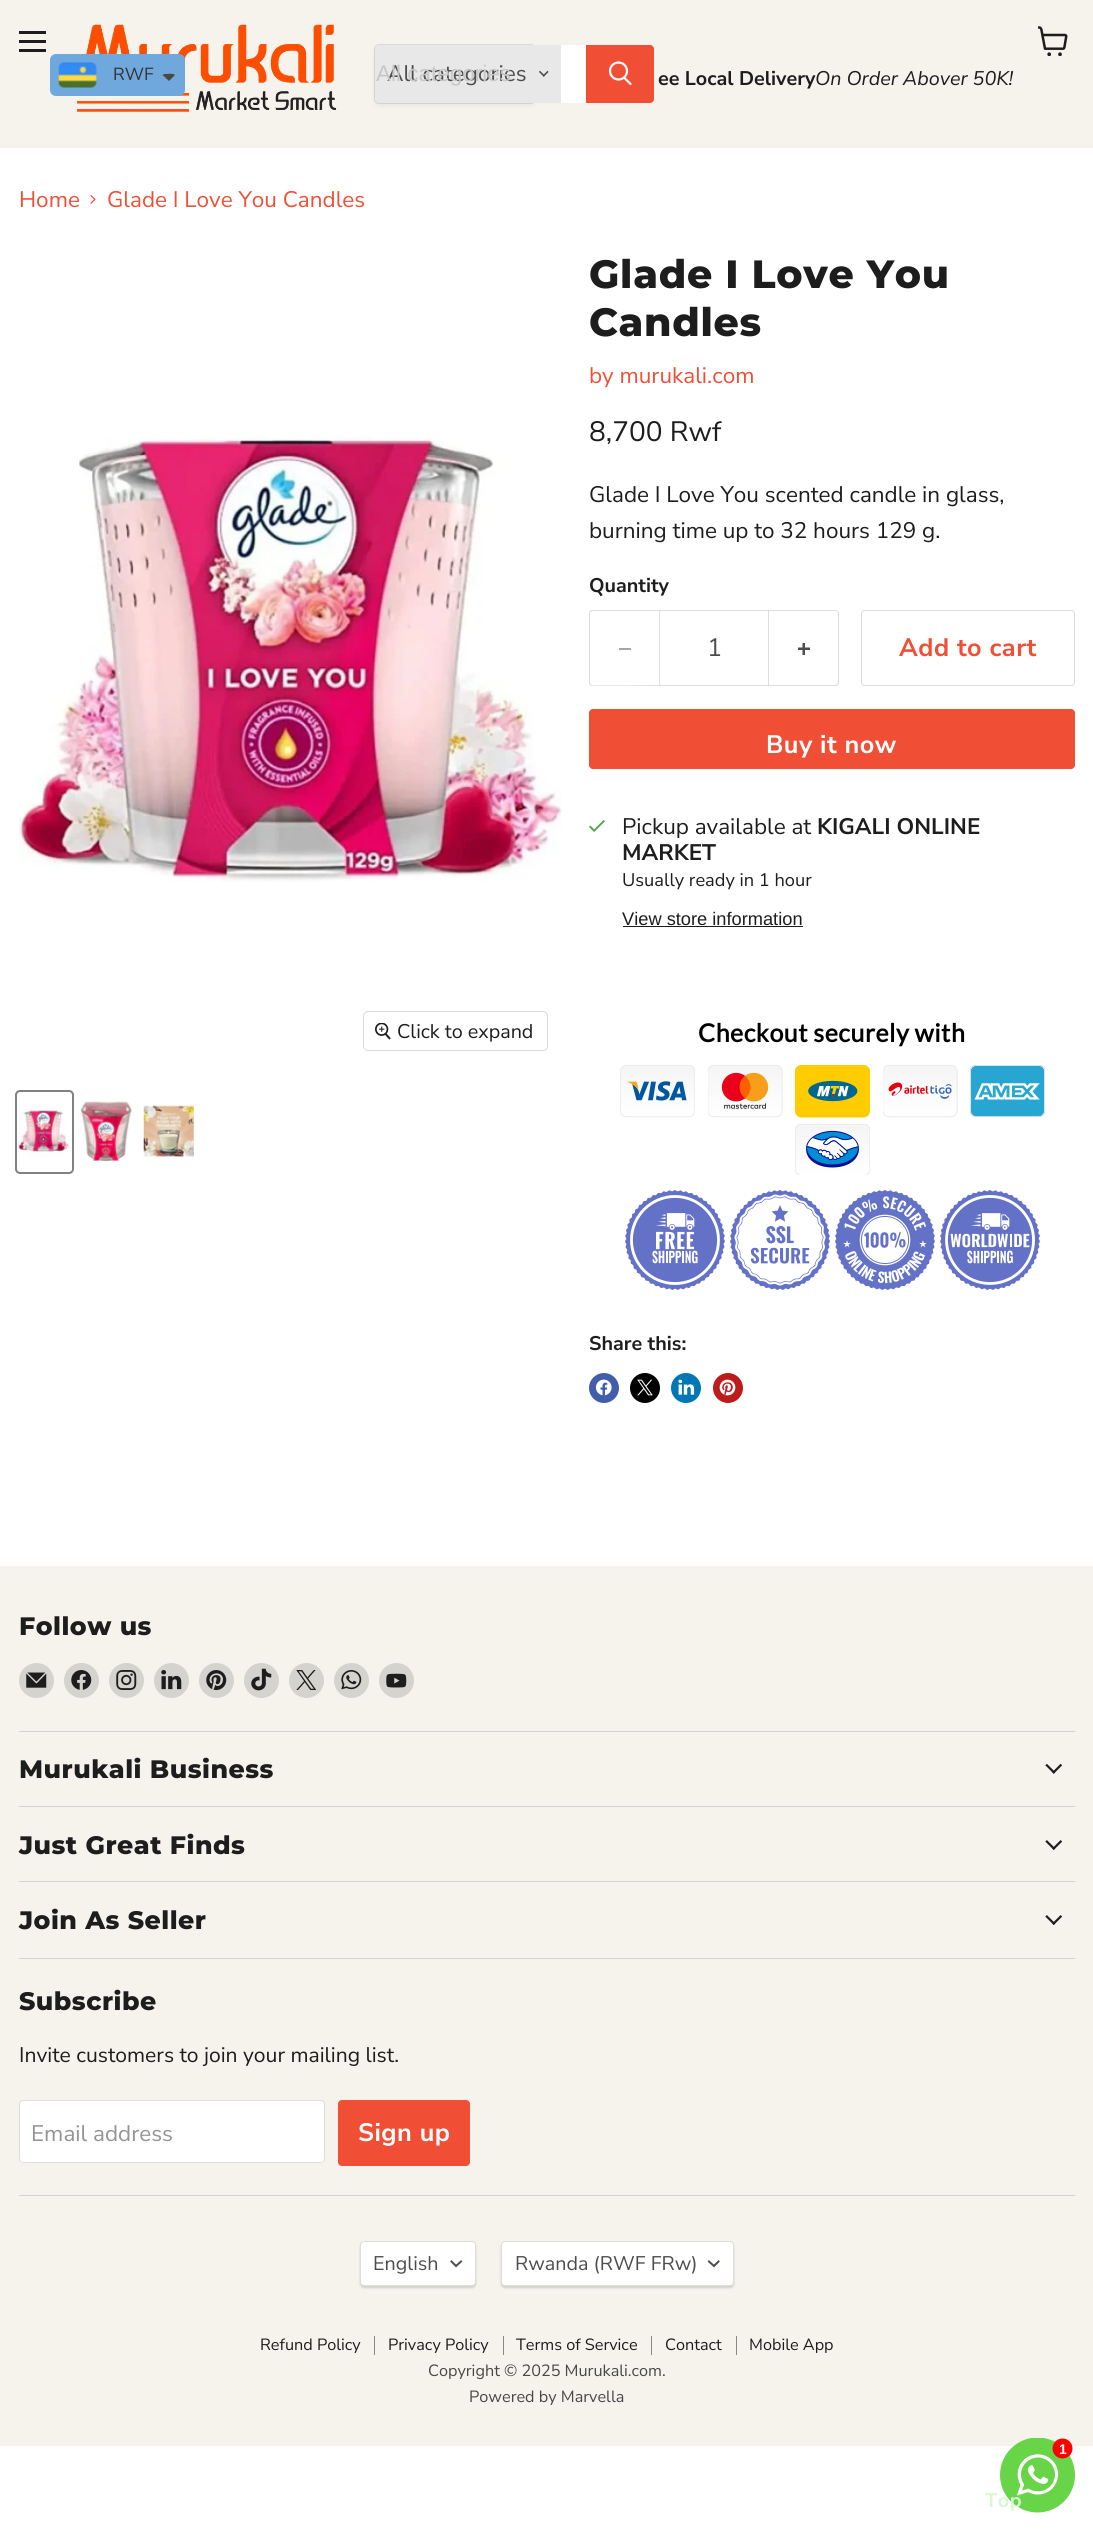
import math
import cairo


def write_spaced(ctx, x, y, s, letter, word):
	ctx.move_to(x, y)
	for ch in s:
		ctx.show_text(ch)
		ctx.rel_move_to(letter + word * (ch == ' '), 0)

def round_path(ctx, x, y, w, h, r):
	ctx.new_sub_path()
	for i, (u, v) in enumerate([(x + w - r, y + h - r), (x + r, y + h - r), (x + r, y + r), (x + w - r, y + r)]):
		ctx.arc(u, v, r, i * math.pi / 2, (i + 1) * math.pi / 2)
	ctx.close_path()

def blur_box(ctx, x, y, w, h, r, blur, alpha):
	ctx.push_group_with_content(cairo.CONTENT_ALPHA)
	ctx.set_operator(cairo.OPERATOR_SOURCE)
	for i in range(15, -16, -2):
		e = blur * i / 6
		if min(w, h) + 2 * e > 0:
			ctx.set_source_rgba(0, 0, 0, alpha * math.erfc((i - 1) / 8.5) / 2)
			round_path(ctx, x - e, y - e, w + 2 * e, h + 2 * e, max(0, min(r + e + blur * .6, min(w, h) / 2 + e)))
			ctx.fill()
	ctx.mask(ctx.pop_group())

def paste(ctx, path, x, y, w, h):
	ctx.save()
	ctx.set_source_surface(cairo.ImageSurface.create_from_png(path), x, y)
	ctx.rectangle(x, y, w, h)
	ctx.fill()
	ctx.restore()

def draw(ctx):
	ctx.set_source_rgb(1, 1, 1)
	ctx.paint()
	ctx.set_source_rgb(0.961, 0.953, 0.929)
	ctx.rectangle(0, 0, 1093, 148)
	ctx.fill()
	paste(ctx, 'media/3.png', 77, 24, 260, 88)
	ctx.set_source_rgb(0.435, 0.659, 0.863)
	round_path(ctx, 50, 54, 135, 42, 6)
	ctx.fill()
	paste(ctx, 'media/1.png', 58, 62, 39, 26)
	ctx.select_font_face('Nunito Sans')
	ctx.set_font_size(17.5)
	ctx.set_source_rgb(0.2, 0.2, 0.2)
	ctx.move_to(113, 80)
	ctx.show_text('RWF')
	ctx.set_source_rgb(0.278, 0.286, 0.259)
	ctx.new_path()
	ctx.move_to(165, 74)
	ctx.curve_to(167.5, 74, 173, 73, 175, 75)
	ctx.line_to(169, 81)
	ctx.line_to(162.5, 75)
	ctx.curve_to(163, 74.5, 164, 74, 165, 74)
	ctx.close_path()
	ctx.fill()
	ctx.set_source_rgb(0.114, 0.114, 0.114)
	ctx.rectangle(19, 31, 27, 3)
	ctx.rectangle(19, 40, 27, 3)
	ctx.rectangle(19, 49, 27, 3)
	ctx.fill()
	paste(ctx, 'media/2.png', 1038, 26, 30, 30)
	ctx.set_source_rgb(0.502, 0.502, 0.502)
	blur_box(ctx, 374, 46, 162, 60, 5, 2, 0.11)
	round_path(ctx, 374.5, 44.5, 161, 59, 4.5)
	ctx.set_source_rgba(0.502, 0.502, 0.502, 0.2)
	ctx.set_line_width(1)
	ctx.stroke()
	ctx.set_source_rgb(0.91, 0.91, 0.91)
	ctx.new_path()
	ctx.move_to(379, 45)
	ctx.line_to(561, 45)
	ctx.line_to(561, 103)
	ctx.line_to(379, 103)
	ctx.curve_to(377, 103, 375, 101, 375, 99)
	ctx.line_to(375, 49)
	ctx.curve_to(375, 47, 377, 45, 379, 45)
	ctx.close_path()
	ctx.fill()
	ctx.set_font_size(22.5)
	ctx.set_source_rgb(0.302, 0.302, 0.302)
	ctx.move_to(387, 81)
	ctx.show_text('All categories')
	ctx.select_font_face('Liberation Sans')
	ctx.set_source_rgb(0.78, 0.78, 0.78)
	ctx.move_to(376, 81)
	ctx.show_text('All categories')
	paste(ctx, 'media/4.png', 539, 70, 10, 7)
	ctx.set_source_rgb(1, 1, 1)
	ctx.rectangle(561, 45, 25, 58)
	ctx.fill()
	ctx.set_source_rgb(0.941, 0.31, 0.212)
	ctx.new_path()
	ctx.move_to(586.5, 45.5)
	ctx.line_to(650, 45.5)
	ctx.curve_to(652, 45.5, 653.5, 47, 653.5, 49)
	ctx.line_to(653.5, 99)
	ctx.curve_to(653.5, 101, 652, 102.5, 650, 102.5)
	ctx.line_to(586.5, 102.5)
	ctx.close_path()
	ctx.fill_preserve()
	ctx.stroke()
	ctx.new_path()
	ctx.move_to(630.5, 84)
	ctx.line_to(624.5, 78)
	ctx.set_source_rgb(1, 1, 1)
	ctx.set_line_width(2.2)
	ctx.set_line_cap(cairo.LINE_CAP_ROUND)
	ctx.stroke()
	ctx.arc(618.5, 71, 8.5, 0, 2 * math.pi)
	ctx.set_line_cap(cairo.LINE_CAP_BUTT)
	ctx.stroke()
	ctx.select_font_face('Nunito Sans', cairo.FONT_SLANT_NORMAL, cairo.FONT_WEIGHT_BOLD)
	ctx.set_font_size(19.75)
	ctx.set_source_rgb(0.114, 0.114, 0.114)
	ctx.move_to(658, 85)
	ctx.show_text('ee Local Delivery')
	ctx.select_font_face('Nunito Sans', cairo.FONT_SLANT_ITALIC)
	ctx.move_to(815, 85)
	ctx.show_text('On Order Abover 50K!')
	ctx.select_font_face('Nunito Sans')
	ctx.set_font_size(22.5)
	ctx.set_source_rgb(0.941, 0.31, 0.212)
	ctx.move_to(19, 207)
	ctx.show_text('Home')
	paste(ctx, 'media/5.png', 90, 195, 6, 9)
	ctx.move_to(107, 207)
	ctx.show_text('Glade I Love You Candles')
	paste(ctx, 'media/6.png', 19, 436, 543, 446)
	round_path(ctx, 363.5, 1011.5, 184, 39, 4.5)
	ctx.set_source_rgb(0.851, 0.851, 0.851)
	ctx.set_line_width(1)
	ctx.stroke()
	ctx.set_source_rgba(1, 1, 1, 0.9)
	round_path(ctx, 364, 1013, 182, 37, 4)
	ctx.fill()
	paste(ctx, 'media/7.png', 375, 1023, 16, 17)
	ctx.set_font_size(19.75)
	ctx.set_source_rgb(0.114, 0.114, 0.114)
	ctx.move_to(397, 1038)
	ctx.show_text('Click to expand')
	round_path(ctx, 16, 1091, 57, 82, 4)
	ctx.set_source_rgb(0.506, 0.506, 0.506)
	ctx.set_line_width(2)
	ctx.stroke()
	paste(ctx, 'media/8.png', 18, 1109, 51, 49)
	paste(ctx, 'media/9.png', 81, 1101, 51, 61)
	paste(ctx, 'media/10.png', 143, 1105, 51, 53)
	ctx.select_font_face('Montserrat ExtraBold')
	ctx.set_font_size(39.4)
	ctx.set_source_rgb(0.114, 0.114, 0.114)
	write_spaced(ctx, 589, 288, 'Glade I Love You', 0.75, 0)
	write_spaced(ctx, 589, 336, 'Candles', 0.75, 0)
	ctx.select_font_face('Nunito Sans')
	ctx.set_font_size(22.5)
	ctx.set_source_rgb(0.941, 0.31, 0.212)
	ctx.move_to(589, 383)
	ctx.show_text('by murukali.com')
	ctx.set_font_size(28)
	ctx.set_source_rgb(0.114, 0.114, 0.114)
	ctx.move_to(589, 441)
	ctx.show_text('8,700 Rwf')
	ctx.set_font_size(22.5)
	ctx.move_to(589, 502)
	ctx.show_text('Glade I Love You scented candle in glass,')
	ctx.move_to(589, 538)
	ctx.show_text('burning time up to 32 hours 129 g.')
	ctx.select_font_face('Nunito Sans', cairo.FONT_SLANT_NORMAL, cairo.FONT_WEIGHT_BOLD)
	ctx.set_font_size(19.75)
	ctx.move_to(589, 592)
	ctx.show_text('Quantity')
	ctx.set_source_rgb(0.867, 0.867, 0.867)
	ctx.set_fill_rule(cairo.FILL_RULE_EVEN_ODD)
	ctx.new_path()
	ctx.move_to(592, 610)
	ctx.line_to(659, 610)
	ctx.line_to(659, 686)
	ctx.line_to(592, 686)
	ctx.curve_to(590, 686, 589, 685, 589, 682)
	ctx.line_to(589, 614)
	ctx.curve_to(589, 612, 590, 610, 592, 610)
	ctx.close_path()
	ctx.move_to(592, 611)
	ctx.line_to(659, 611)
	ctx.line_to(659, 685)
	ctx.curve_to(652, 685, 593, 686, 591, 685)
	ctx.line_to(590, 682)
	ctx.line_to(590, 613)
	ctx.line_to(591, 612)
	ctx.close_path()
	ctx.fill()
	ctx.set_source_rgb(0.651, 0.651, 0.651)
	ctx.rectangle(619, 648, 12, 2)
	ctx.fill()
	ctx.rectangle(659.5, 610.5, 109, 75)
	ctx.set_source_rgb(0.867, 0.867, 0.867)
	ctx.set_line_width(1)
	ctx.stroke()
	ctx.select_font_face('Nunito Sans')
	ctx.set_font_size(25.25)
	ctx.set_source_rgb(0.302, 0.302, 0.302)
	ctx.move_to(707, 656)
	ctx.show_text('1')
	ctx.set_source_rgb(0.867, 0.867, 0.867)
	ctx.new_path()
	ctx.move_to(769, 610)
	ctx.line_to(835, 610)
	ctx.curve_to(837, 610, 839, 612, 839, 614)
	ctx.line_to(839, 682)
	ctx.curve_to(839, 685, 837, 686, 835, 686)
	ctx.line_to(769, 686)
	ctx.close_path()
	ctx.move_to(769, 611)
	ctx.line_to(835, 611)
	ctx.curve_to(836, 611, 838, 612, 838, 614)
	ctx.line_to(838, 682)
	ctx.curve_to(838, 684, 836, 685, 835, 685)
	ctx.line_to(769, 685)
	ctx.close_path()
	ctx.fill()
	paste(ctx, 'media/11.png', 798, 643, 12, 12)
	round_path(ctx, 861.5, 610.5, 213, 75, 3.5)
	ctx.stroke()
	ctx.select_font_face('Nunito Sans', cairo.FONT_SLANT_NORMAL, cairo.FONT_WEIGHT_BOLD)
	ctx.set_source_rgb(0.941, 0.31, 0.212)
	write_spaced(ctx, 899, 656, 'Add to cart', 0.5, 0)
	round_path(ctx, 589.5, 709.5, 485, 59, 3.5)
	ctx.fill_preserve()
	ctx.stroke()
	ctx.set_source_rgb(1, 1, 1)
	write_spaced(ctx, 766, 753, 'Buy it now', 0.5, 0)
	paste(ctx, 'media/12.png', 589, 820, 16, 12)
	ctx.select_font_face('Nunito Sans')
	ctx.set_font_size(22.5)
	ctx.set_source_rgb(0.114, 0.114, 0.114)
	ctx.move_to(622, 834)
	ctx.show_text('Pickup available at')
	ctx.select_font_face('Nunito Sans', cairo.FONT_SLANT_NORMAL, cairo.FONT_WEIGHT_BOLD)
	ctx.move_to(817, 834)
	ctx.show_text('KIGALI ONLINE')
	ctx.move_to(622, 860)
	ctx.show_text('MARKET')
	ctx.select_font_face('Nunito Sans')
	ctx.set_font_size(18.25)
	ctx.move_to(622, 886)
	ctx.show_text('Usually ready in 1 hour')
	ctx.select_font_face('Liberation Sans')
	ctx.move_to(622, 925)
	ctx.show_text('View store information')
	ctx.rectangle(623, 926, 180, 1)
	ctx.fill()
	ctx.select_font_face('Lato', cairo.FONT_SLANT_NORMAL, cairo.FONT_WEIGHT_BOLD)
	ctx.set_font_size(25)
	ctx.set_source_rgb(0, 0, 0)
	write_spaced(ctx, 698, 1042, 'Checkout securely with', 0.5, 0)
	paste(ctx, 'media/13.png', 620, 1065, 75, 53)
	paste(ctx, 'media/14.png', 708, 1065, 75, 53)
	paste(ctx, 'media/15.png', 795, 1065, 75, 53)
	paste(ctx, 'media/16.png', 883, 1065, 75, 53)
	paste(ctx, 'media/17.png', 970, 1065, 75, 53)
	paste(ctx, 'media/18.png', 795, 1124, 75, 51)
	paste(ctx, 'media/19.png', 625, 1190, 100, 100)
	paste(ctx, 'media/20.png', 730, 1190, 100, 100)
	paste(ctx, 'media/21.png', 835, 1190, 100, 100)
	paste(ctx, 'media/22.png', 940, 1190, 100, 100)
	ctx.select_font_face('Nunito Sans', cairo.FONT_SLANT_NORMAL, cairo.FONT_WEIGHT_BOLD)
	ctx.set_font_size(19.75)
	ctx.set_source_rgb(0.114, 0.114, 0.114)
	ctx.move_to(589, 1350)
	ctx.show_text('Share this:')
	ctx.set_source_rgb(0.259, 0.365, 0.671)
	ctx.new_path()
	ctx.arc(604, 1388, 15, 0, 2 * math.pi)
	ctx.fill()
	paste(ctx, 'media/23.png', 595, 1379, 17, 17)
	ctx.set_source_rgb(0, 0, 0)
	ctx.arc(645, 1388, 15, 0, 2 * math.pi)
	ctx.fill()
	paste(ctx, 'media/24.png', 637, 1379, 16, 17)
	ctx.set_source_rgb(0, 0.467, 0.71)
	ctx.arc(686, 1388, 15, 0, 2 * math.pi)
	ctx.fill()
	paste(ctx, 'media/25.png', 678, 1379, 17, 16)
	ctx.set_source_rgb(0.741, 0.11, 0.11)
	ctx.arc(728, 1388, 15, 0, 2 * math.pi)
	ctx.fill()
	paste(ctx, 'media/26.png', 719, 1379, 17, 17)
	ctx.set_source_rgb(0.961, 0.953, 0.929)
	ctx.rectangle(0, 1566, 1093, 880)
	ctx.fill()
	ctx.set_source_rgb(0.835, 0.827, 0.808)
	ctx.rectangle(19, 1731, 1056, 1)
	ctx.fill()
	ctx.select_font_face('Montserrat ExtraBold')
	ctx.set_font_size(25.25)
	ctx.set_source_rgb(0.114, 0.114, 0.114)
	write_spaced(ctx, 19, 1635, 'Follow us', 0.5, 0)
	ctx.set_source_rgb(0.835, 0.827, 0.808)
	ctx.new_path()
	ctx.arc(36.5, 1680.5, 17.5, 0, 2 * math.pi)
	ctx.fill()
	paste(ctx, 'media/27.png', 26, 1672, 21, 16)
	ctx.arc(81.5, 1680.5, 17.5, 0, 2 * math.pi)
	ctx.fill()
	paste(ctx, 'media/28.png', 71, 1670, 21, 20)
	ctx.arc(126.5, 1680.5, 17.5, 0, 2 * math.pi)
	ctx.fill()
	paste(ctx, 'media/29.png', 116, 1670, 21, 20)
	ctx.arc(171.5, 1680.5, 17.5, 0, 2 * math.pi)
	ctx.fill()
	paste(ctx, 'media/30.png', 161, 1670, 21, 20)
	ctx.arc(216.5, 1680.5, 17.5, 0, 2 * math.pi)
	ctx.fill()
	paste(ctx, 'media/31.png', 206, 1670, 21, 21)
	ctx.arc(261.5, 1680.5, 17.5, 0, 2 * math.pi)
	ctx.fill()
	paste(ctx, 'media/32.png', 251, 1668, 21, 23)
	ctx.arc(306.5, 1680.5, 17.5, 0, 2 * math.pi)
	ctx.fill()
	paste(ctx, 'media/33.png', 296, 1670, 21, 20)
	ctx.arc(351.5, 1680.5, 17.5, 0, 2 * math.pi)
	ctx.fill()
	paste(ctx, 'media/34.png', 341, 1670, 21, 20)
	ctx.arc(396.5, 1680.5, 17.5, 0, 2 * math.pi)
	ctx.fill()
	paste(ctx, 'media/35.png', 386, 1673, 21, 15)
	ctx.rectangle(19, 1806, 1056, 1)
	ctx.fill()
	ctx.set_source_rgb(0.114, 0.114, 0.114)
	write_spaced(ctx, 19, 1778, 'Murukali Business', 0.5, 0)
	paste(ctx, 'media/36.png', 1045, 1764, 18, 10)
	ctx.set_source_rgb(0.835, 0.827, 0.808)
	ctx.rectangle(19, 1881, 1056, 1)
	ctx.fill()
	ctx.set_source_rgb(0.114, 0.114, 0.114)
	write_spaced(ctx, 19, 1854, 'Just Great Finds', 0.5, 0)
	paste(ctx, 'media/37.png', 1045, 1840, 18, 10)
	ctx.set_source_rgb(0.835, 0.827, 0.808)
	ctx.rectangle(19, 1958, 1056, 1)
	ctx.fill()
	ctx.set_source_rgb(0.114, 0.114, 0.114)
	write_spaced(ctx, 19, 1929, 'Join As Seller', 0.5, 0)
	paste(ctx, 'media/37.png', 1045, 1915, 18, 10)
	ctx.set_source_rgb(0.835, 0.827, 0.808)
	ctx.rectangle(19, 2195, 1056, 1)
	ctx.fill()
	ctx.set_source_rgb(0.114, 0.114, 0.114)
	write_spaced(ctx, 19, 2010, 'Subscribe', 0.5, 0)
	ctx.select_font_face('Nunito Sans')
	ctx.set_font_size(21.1)
	ctx.move_to(19, 2062)
	ctx.show_text('Invite customers to join your mailing list.')
	ctx.set_source_rgb(1, 1, 1)
	round_path(ctx, 19.5, 2100.5, 305, 62, 3.5)
	ctx.fill_preserve()
	ctx.set_source_rgb(0.867, 0.867, 0.867)
	ctx.stroke()
	ctx.set_font_size(22.5)
	ctx.set_source_rgb(0.58, 0.58, 0.58)
	ctx.move_to(31, 2141)
	ctx.show_text('Email address')
	ctx.set_source_rgb(0.941, 0.31, 0.212)
	round_path(ctx, 338.5, 2100.5, 131, 65, 3.5)
	ctx.fill_preserve()
	ctx.stroke()
	ctx.select_font_face('Nunito Sans', cairo.FONT_SLANT_NORMAL, cairo.FONT_WEIGHT_BOLD)
	ctx.set_font_size(25.25)
	ctx.set_source_rgb(1, 1, 1)
	write_spaced(ctx, 358, 2141, 'Sign up', 0.5, 0)
	ctx.set_source_rgb(0, 0, 0)
	blur_box(ctx, 360, 2243, 116, 45, 4, 1, 0.15)
	ctx.set_source_rgb(1, 1, 1)
	round_path(ctx, 360.5, 2241.5, 115, 44, 3.5)
	ctx.fill_preserve()
	ctx.set_source_rgb(0.867, 0.867, 0.867)
	ctx.stroke()
	ctx.select_font_face('Nunito Sans')
	ctx.set_font_size(19.75)
	ctx.set_source_rgb(0.302, 0.302, 0.302)
	ctx.move_to(373, 2270)
	ctx.show_text('English')
	ctx.new_path()
	ctx.move_to(456, 2266)
	ctx.line_to(461, 2261.5)
	ctx.move_to(456, 2266)
	ctx.line_to(451.5, 2261.5)
	ctx.set_line_width(2)
	ctx.set_line_cap(cairo.LINE_CAP_SQUARE)
	ctx.stroke()
	ctx.set_source_rgb(0, 0, 0)
	blur_box(ctx, 501, 2243, 233, 45, 4, 1, 0.15)
	ctx.set_source_rgb(1, 1, 1)
	round_path(ctx, 501.5, 2241.5, 232, 44, 3.5)
	ctx.fill_preserve()
	ctx.set_source_rgb(0.867, 0.867, 0.867)
	ctx.set_line_width(1)
	ctx.set_line_cap(cairo.LINE_CAP_BUTT)
	ctx.stroke()
	ctx.set_source_rgb(0.302, 0.302, 0.302)
	ctx.move_to(515, 2270)
	ctx.show_text('Rwanda (RWF FRw)')
	ctx.new_path()
	ctx.move_to(714, 2266)
	ctx.line_to(718.5, 2261.5)
	ctx.move_to(714, 2266)
	ctx.line_to(709, 2261.5)
	ctx.set_line_width(2)
	ctx.set_line_cap(cairo.LINE_CAP_SQUARE)
	ctx.stroke()
	ctx.set_source_rgb(0.537, 0.533, 0.522)
	ctx.rectangle(374, 2336, 1, 19)
	ctx.fill()
	ctx.set_font_size(16.25)
	ctx.set_source_rgb(0.114, 0.114, 0.114)
	ctx.move_to(260, 2350)
	ctx.show_text('Refund Policy')
	ctx.set_source_rgb(0.537, 0.533, 0.522)
	ctx.rectangle(503, 2336, 1, 19)
	ctx.fill()
	ctx.set_source_rgb(0.114, 0.114, 0.114)
	ctx.move_to(388, 2350)
	ctx.show_text('Privacy Policy')
	ctx.set_source_rgb(0.537, 0.533, 0.522)
	ctx.rectangle(651, 2336, 1, 19)
	ctx.fill()
	ctx.set_source_rgb(0.114, 0.114, 0.114)
	ctx.move_to(516, 2350)
	ctx.show_text('Terms of Service')
	ctx.set_source_rgb(0.537, 0.533, 0.522)
	ctx.rectangle(736, 2336, 1, 19)
	ctx.fill()
	ctx.set_source_rgb(0.114, 0.114, 0.114)
	ctx.move_to(665, 2350)
	ctx.show_text('Contact')
	ctx.move_to(749, 2350)
	ctx.show_text('Mobile App')
	ctx.set_source_rgb(0.282, 0.282, 0.278)
	ctx.move_to(428, 2376)
	ctx.show_text('Copyright © 2025 Murukali.com.')
	ctx.move_to(469, 2402)
	ctx.show_text('Powered by Marvella')
	paste(ctx, 'media/38.png', 1000, 2438, 75, 75)
	ctx.select_font_face('Liberation Sans', cairo.FONT_SLANT_NORMAL, cairo.FONT_WEIGHT_BOLD)
	ctx.set_font_size(14)
	ctx.set_source_rgb(1, 1, 1)
	ctx.move_to(1059, 2454)
	ctx.show_text('1')
	ctx.select_font_face('Nunito Sans', cairo.FONT_SLANT_NORMAL, cairo.FONT_WEIGHT_BOLD)
	ctx.set_font_size(19.75)
	ctx.set_source_rgb(0.863, 0.961, 0.835)
	write_spaced(ctx, 985, 2507, 'Top', 0.5, 0)


surface = cairo.ImageSurface(cairo.FORMAT_RGB24, 1093, 2531)
ctx = cairo.Context(surface)
options = cairo.FontOptions()
options.set_hint_metrics(cairo.HINT_METRICS_OFF)
options.set_hint_style(cairo.HINT_STYLE_NONE)
ctx.set_font_options(options)
ctx.set_miter_limit(4)
draw(ctx)
surface.write_to_png('image.png')
